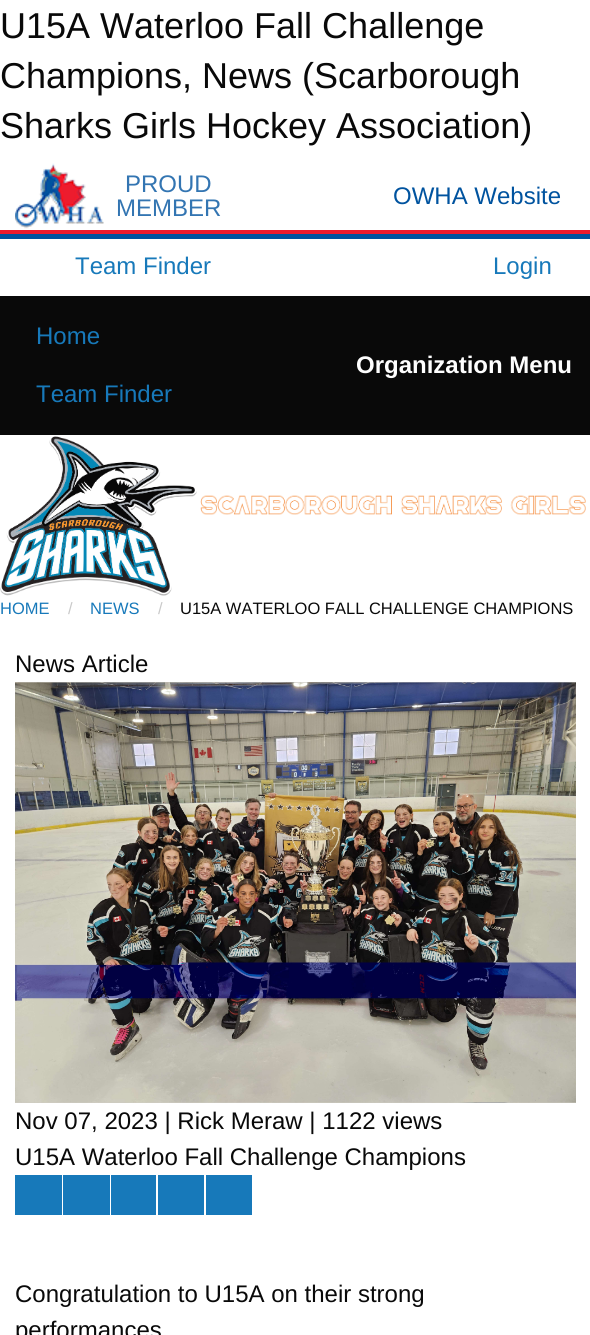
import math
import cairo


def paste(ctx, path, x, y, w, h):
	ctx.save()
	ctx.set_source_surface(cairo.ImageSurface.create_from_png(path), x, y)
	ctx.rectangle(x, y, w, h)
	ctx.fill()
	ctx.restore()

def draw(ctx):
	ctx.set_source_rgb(1, 1, 1)
	ctx.paint()
	ctx.select_font_face('Liberation Sans')
	ctx.set_font_size(36)
	ctx.set_source_rgb(0.039, 0.039, 0.039)
	for x, y, s in [
		(0, 38, 'U15A Waterloo Fall Challenge'),
		(0, 88, 'Champions, News (Scarborough'),
		(0, 138, 'Sharks Girls Hockey Association)'),
	]:
		ctx.move_to(x, y)
		ctx.show_text(s)
	paste(ctx, 'media/1.png', 15, 163, 89, 66)
	ctx.set_font_size(24)
	ctx.set_source_rgb(0.2, 0.459, 0.698)
	ctx.move_to(125, 192)
	ctx.show_text('PROUD')
	ctx.move_to(116, 216)
	ctx.show_text('MEMBER')
	ctx.set_source_rgb(0, 0.325, 0.624)
	ctx.move_to(393, 204)
	ctx.show_text('OWHA Website')
	ctx.set_source_rgb(0.929, 0.106, 0.176)
	ctx.rectangle(0, 230, 590, 4)
	ctx.fill()
	ctx.set_source_rgb(0, 0.325, 0.624)
	ctx.rectangle(0, 234, 590, 5)
	ctx.fill()
	ctx.set_source_rgb(0.09, 0.475, 0.729)
	ctx.move_to(75, 274)
	ctx.show_text('Team Finder')
	ctx.move_to(493, 274)
	ctx.show_text('Login')
	ctx.set_source_rgb(0.039, 0.039, 0.039)
	ctx.rectangle(0, 296, 590, 139)
	ctx.fill()
	ctx.set_source_rgb(0.09, 0.475, 0.729)
	ctx.move_to(36, 344)
	ctx.show_text('Home')
	ctx.move_to(36, 402)
	ctx.show_text('Team Finder')
	ctx.select_font_face('Liberation Sans', cairo.FONT_SLANT_NORMAL, cairo.FONT_WEIGHT_BOLD)
	ctx.set_source_rgb(0.996, 0.996, 0.996)
	ctx.move_to(356, 373)
	ctx.show_text('Organization Menu')
	paste(ctx, 'media/2.png', 0, 436, 197, 160)
	paste(ctx, 'media/3.png', 200, 495, 386, 20)
	ctx.select_font_face('Liberation Sans')
	ctx.set_font_size(16.5)
	ctx.set_source_rgb(0.09, 0.475, 0.729)
	ctx.move_to(0, 614)
	ctx.show_text('HOME')
	ctx.set_source_rgb(0.792, 0.792, 0.792)
	ctx.move_to(68, 614)
	ctx.show_text('/')
	ctx.set_source_rgb(0.09, 0.475, 0.729)
	ctx.move_to(90, 614)
	ctx.show_text('NEWS')
	ctx.set_source_rgb(0.792, 0.792, 0.792)
	ctx.move_to(158, 614)
	ctx.show_text('/')
	ctx.set_source_rgb(0.039, 0.039, 0.039)
	ctx.move_to(180, 614)
	ctx.show_text('U15A WATERLOO FALL CHALLENGE CHAMPIONS')
	ctx.set_font_size(24)
	ctx.move_to(15, 672)
	ctx.show_text('News Article')
	paste(ctx, 'media/4.png', 15, 682, 561, 421)
	paste(ctx, 'media/5.png', 15, 682, 561, 421)
	ctx.move_to(15, 1129)
	ctx.show_text('Nov 07, 2023 | Rick Meraw | 1122 views')
	ctx.move_to(15, 1165)
	ctx.show_text('U15A Waterloo Fall Challenge Champions')
	ctx.set_source_rgb(0.09, 0.475, 0.729)
	ctx.rectangle(15, 1175, 47, 40)
	ctx.rectangle(63, 1175, 47, 40)
	ctx.rectangle(111, 1175, 45, 40)
	ctx.rectangle(158, 1175, 46, 40)
	ctx.rectangle(206, 1175, 46, 40)
	ctx.fill()
	ctx.set_source_rgb(0.039, 0.039, 0.039)
	ctx.move_to(15, 1302)
	ctx.show_text('Congratulation to U15A on their strong')
	ctx.move_to(15, 1338)
	ctx.show_text('performances')


surface = cairo.ImageSurface(cairo.FORMAT_RGB24, 590, 1335)
ctx = cairo.Context(surface)
options = cairo.FontOptions()
options.set_hint_metrics(cairo.HINT_METRICS_OFF)
options.set_hint_style(cairo.HINT_STYLE_NONE)
ctx.set_font_options(options)
ctx.set_miter_limit(4)
draw(ctx)
surface.write_to_png('image.png')
